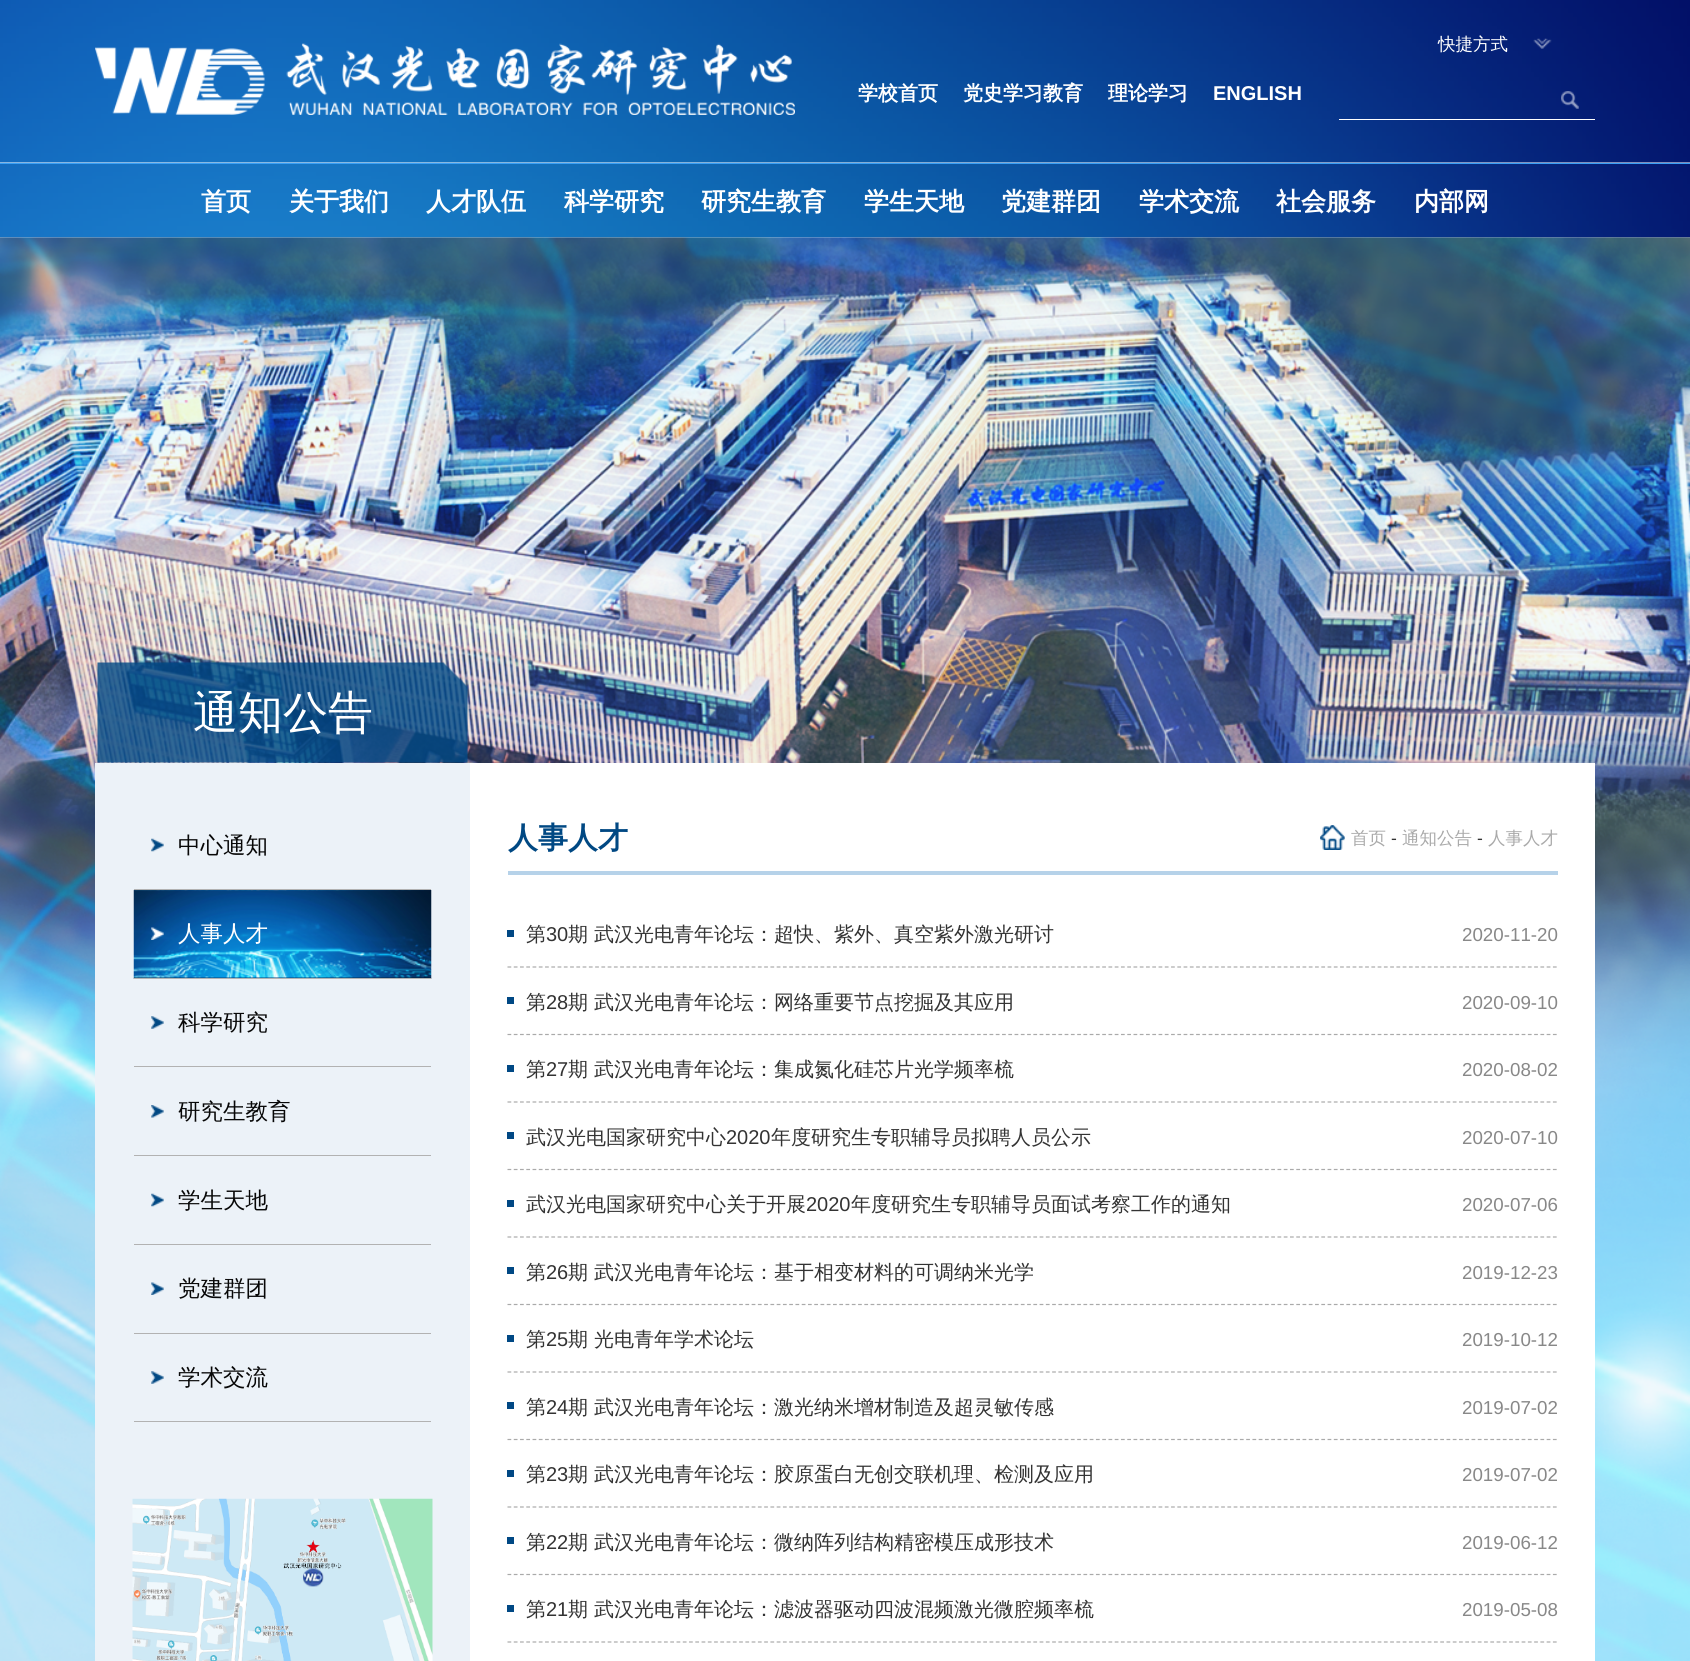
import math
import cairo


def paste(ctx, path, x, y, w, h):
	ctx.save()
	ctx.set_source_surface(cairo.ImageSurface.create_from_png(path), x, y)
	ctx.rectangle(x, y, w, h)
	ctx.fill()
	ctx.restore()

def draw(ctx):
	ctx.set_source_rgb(1, 1, 1)
	ctx.paint()
	paste(ctx, 'media/1.png', 0, 0, 1690, 163)
	paste(ctx, 'media/2.png', 95, 43, 700, 72)
	paste(ctx, 'media/3.png', 1533, 38, 19, 11)
	ctx.select_font_face('WenQuanYi Zen Hei Medium')
	ctx.set_font_size(17.5)
	ctx.set_source_rgb(1, 1, 1)
	ctx.move_to(1438, 50)
	ctx.show_text('快捷方式')
	ctx.select_font_face('WenQuanYi Zen Hei', cairo.FONT_SLANT_NORMAL, cairo.FONT_WEIGHT_BOLD)
	ctx.set_font_size(20)
	for x, y, s in [
		(858, 100, '学校首页'),
		(963, 100, '党史学习教育'),
		(1108, 100, '理论学习'),
	]:
		ctx.move_to(x, y)
		ctx.show_text(s)
	ctx.select_font_face('Liberation Sans', cairo.FONT_SLANT_NORMAL, cairo.FONT_WEIGHT_BOLD)
	ctx.move_to(1213, 100)
	ctx.show_text('ENGLISH')
	ctx.rectangle(1339, 119, 256, 1)
	ctx.fill()
	paste(ctx, 'media/4.png', 1561, 91, 18, 18)
	paste(ctx, 'media/5.png', 0, 164, 1690, 74)
	ctx.set_source_rgb(0.227, 0.627, 0.961)
	ctx.rectangle(0, 163, 1690, 1)
	ctx.fill()
	ctx.select_font_face('WenQuanYi Zen Hei', cairo.FONT_SLANT_NORMAL, cairo.FONT_WEIGHT_BOLD)
	ctx.set_font_size(25)
	ctx.set_source_rgb(1, 1, 1)
	for x, y, s in [
		(201, 210, '首页'),
		(289, 210, '关于我们'),
		(426, 210, '人才队伍'),
		(564, 210, '科学研究'),
		(701, 210, '研究生教育'),
		(864, 210, '学生天地'),
		(1001, 210, '党建群团'),
		(1139, 210, '学术交流'),
		(1276, 210, '社会服务'),
		(1414, 210, '内部网'),
	]:
		ctx.move_to(x, y)
		ctx.show_text(s)
	paste(ctx, 'media/6.png', 0, 237, 1690, 1424)
	paste(ctx, 'media/7.png', 97, 662, 371, 101)
	ctx.select_font_face('WenQuanYi Zen Hei Medium')
	ctx.set_font_size(45)
	ctx.move_to(193, 728)
	ctx.show_text('通知公告')
	ctx.set_source_rgb(0.925, 0.949, 0.969)
	ctx.rectangle(95, 763, 375, 898)
	ctx.fill()
	ctx.set_source_rgb(0.698, 0.698, 0.698)
	ctx.rectangle(134, 889, 297, 1)
	ctx.fill()
	paste(ctx, 'media/8.png', 151, 838, 13, 14)
	ctx.set_font_size(22.5)
	ctx.set_source_rgb(0.031, 0.031, 0.031)
	ctx.move_to(178, 853)
	ctx.show_text('中心通知')
	paste(ctx, 'media/9.png', 133, 890, 299, 89)
	ctx.set_source_rgb(0.698, 0.698, 0.698)
	ctx.rectangle(134, 978, 297, 1)
	ctx.fill()
	paste(ctx, 'media/10.png', 151, 927, 13, 13)
	ctx.set_source_rgb(1, 1, 1)
	ctx.move_to(178, 941)
	ctx.show_text('人事人才')
	ctx.set_source_rgb(0.698, 0.698, 0.698)
	ctx.rectangle(134, 1066, 297, 1)
	ctx.fill()
	paste(ctx, 'media/11.png', 151, 1016, 13, 13)
	ctx.set_source_rgb(0.031, 0.031, 0.031)
	ctx.move_to(178, 1030)
	ctx.show_text('科学研究')
	ctx.set_source_rgb(0.698, 0.698, 0.698)
	ctx.rectangle(134, 1155, 297, 1)
	ctx.fill()
	paste(ctx, 'media/12.png', 151, 1105, 13, 13)
	ctx.set_source_rgb(0.031, 0.031, 0.031)
	ctx.move_to(178, 1119)
	ctx.show_text('研究生教育')
	ctx.set_source_rgb(0.698, 0.698, 0.698)
	ctx.rectangle(134, 1244, 297, 1)
	ctx.fill()
	paste(ctx, 'media/8.png', 151, 1193, 13, 14)
	ctx.set_source_rgb(0.031, 0.031, 0.031)
	ctx.move_to(178, 1208)
	ctx.show_text('学生天地')
	ctx.set_source_rgb(0.698, 0.698, 0.698)
	ctx.rectangle(134, 1333, 297, 1)
	ctx.fill()
	paste(ctx, 'media/13.png', 151, 1282, 13, 13)
	ctx.set_source_rgb(0.031, 0.031, 0.031)
	ctx.move_to(178, 1296)
	ctx.show_text('党建群团')
	ctx.set_source_rgb(0.698, 0.698, 0.698)
	ctx.rectangle(134, 1421, 297, 1)
	ctx.fill()
	paste(ctx, 'media/11.png', 151, 1371, 13, 13)
	ctx.set_source_rgb(0.031, 0.031, 0.031)
	ctx.move_to(178, 1385)
	ctx.show_text('学术交流')
	paste(ctx, 'media/14.png', 132, 1498, 301, 163)
	ctx.set_source_rgb(1, 1, 1)
	ctx.rectangle(470, 763, 1125, 898)
	ctx.fill()
	ctx.set_source_rgb(0.714, 0.824, 0.914)
	ctx.rectangle(508, 871, 1050, 4)
	ctx.fill()
	ctx.select_font_face('WenQuanYi Zen Hei', cairo.FONT_SLANT_NORMAL, cairo.FONT_WEIGHT_BOLD)
	ctx.set_font_size(30)
	ctx.set_source_rgb(0, 0.282, 0.514)
	ctx.move_to(508, 848)
	ctx.show_text('人事人才')
	paste(ctx, 'media/15.png', 1320, 825, 25, 25)
	ctx.select_font_face('WenQuanYi Zen Hei Medium')
	ctx.set_font_size(17.5)
	ctx.set_source_rgb(0.667, 0.667, 0.667)
	ctx.move_to(1351, 844)
	ctx.show_text('首页')
	ctx.select_font_face('Liberation Sans')
	ctx.set_source_rgb(0.2, 0.2, 0.2)
	ctx.move_to(1391, 844)
	ctx.show_text('-')
	ctx.select_font_face('WenQuanYi Zen Hei Medium')
	ctx.set_source_rgb(0.667, 0.667, 0.667)
	ctx.move_to(1402, 844)
	ctx.show_text('通知公告')
	ctx.select_font_face('Liberation Sans')
	ctx.set_source_rgb(0.2, 0.2, 0.2)
	ctx.move_to(1477, 844)
	ctx.show_text('-')
	ctx.select_font_face('WenQuanYi Zen Hei Medium')
	ctx.set_source_rgb(0.667, 0.667, 0.667)
	ctx.move_to(1488, 844)
	ctx.show_text('人事人才')
	ctx.set_source_rgb(0, 0.282, 0.518)
	ctx.rectangle(507, 930, 7, 7)
	ctx.fill()
	ctx.new_path()
	ctx.move_to(507.5, 967)
	ctx.line_to(1557.5, 967)
	ctx.set_source_rgb(0.667, 0.667, 0.667)
	ctx.set_line_width(1.2)
	ctx.set_dash([3.75, 2.51])
	ctx.stroke()
	ctx.set_font_size(20)
	ctx.set_source_rgb(0.2, 0.2, 0.2)
	ctx.move_to(526, 941)
	ctx.show_text('第')
	ctx.select_font_face('Liberation Sans')
	ctx.move_to(546, 941)
	ctx.show_text('30')
	ctx.select_font_face('WenQuanYi Zen Hei Medium')
	ctx.move_to(568, 941)
	ctx.show_text('期 武汉光电青年论坛：超快、紫外、真空紫外激光研讨')
	ctx.select_font_face('Liberation Sans')
	ctx.set_font_size(18.75)
	ctx.set_source_rgb(0.533, 0.533, 0.533)
	ctx.move_to(1462, 941)
	ctx.show_text('2020-11-20')
	ctx.set_source_rgb(0, 0.282, 0.518)
	ctx.rectangle(507, 997, 7, 7)
	ctx.fill()
	ctx.new_path()
	ctx.move_to(507.5, 1034.5)
	ctx.line_to(1557.5, 1034.5)
	ctx.set_source_rgb(0.667, 0.667, 0.667)
	ctx.stroke()
	ctx.select_font_face('WenQuanYi Zen Hei Medium')
	ctx.set_font_size(20)
	ctx.set_source_rgb(0.2, 0.2, 0.2)
	ctx.move_to(526, 1009)
	ctx.show_text('第')
	ctx.select_font_face('Liberation Sans')
	ctx.move_to(546, 1009)
	ctx.show_text('28')
	ctx.select_font_face('WenQuanYi Zen Hei Medium')
	ctx.move_to(568, 1009)
	ctx.show_text('期 武汉光电青年论坛：网络重要节点挖掘及其应用')
	ctx.select_font_face('Liberation Sans')
	ctx.set_font_size(18.75)
	ctx.set_source_rgb(0.533, 0.533, 0.533)
	ctx.move_to(1462, 1009)
	ctx.show_text('2020-09-10')
	ctx.set_source_rgb(0, 0.282, 0.518)
	ctx.rectangle(507, 1065, 7, 7)
	ctx.fill()
	ctx.new_path()
	ctx.move_to(507.5, 1102)
	ctx.line_to(1557.5, 1102)
	ctx.set_source_rgb(0.667, 0.667, 0.667)
	ctx.stroke()
	ctx.select_font_face('WenQuanYi Zen Hei Medium')
	ctx.set_font_size(20)
	ctx.set_source_rgb(0.2, 0.2, 0.2)
	ctx.move_to(526, 1076)
	ctx.show_text('第')
	ctx.select_font_face('Liberation Sans')
	ctx.move_to(546, 1076)
	ctx.show_text('27')
	ctx.select_font_face('WenQuanYi Zen Hei Medium')
	ctx.move_to(568, 1076)
	ctx.show_text('期 武汉光电青年论坛：集成氮化硅芯片光学频率梳')
	ctx.select_font_face('Liberation Sans')
	ctx.set_font_size(18.75)
	ctx.set_source_rgb(0.533, 0.533, 0.533)
	ctx.move_to(1462, 1076)
	ctx.show_text('2020-08-02')
	ctx.set_source_rgb(0, 0.282, 0.518)
	ctx.rectangle(507, 1132, 7, 7)
	ctx.fill()
	ctx.new_path()
	ctx.move_to(507.5, 1169.5)
	ctx.line_to(1557.5, 1169.5)
	ctx.set_source_rgb(0.667, 0.667, 0.667)
	ctx.stroke()
	ctx.select_font_face('WenQuanYi Zen Hei Medium')
	ctx.set_font_size(20)
	ctx.set_source_rgb(0.2, 0.2, 0.2)
	ctx.move_to(526, 1144)
	ctx.show_text('武汉光电国家研究中心')
	ctx.select_font_face('Liberation Sans')
	ctx.move_to(726, 1144)
	ctx.show_text('2020')
	ctx.select_font_face('WenQuanYi Zen Hei Medium')
	ctx.move_to(771, 1144)
	ctx.show_text('年度研究生专职辅导员拟聘人员公示')
	ctx.select_font_face('Liberation Sans')
	ctx.set_font_size(18.75)
	ctx.set_source_rgb(0.533, 0.533, 0.533)
	ctx.move_to(1462, 1144)
	ctx.show_text('2020-07-10')
	ctx.set_source_rgb(0, 0.282, 0.518)
	ctx.rectangle(507, 1200, 7, 7)
	ctx.fill()
	ctx.new_path()
	ctx.move_to(507.5, 1237)
	ctx.line_to(1557.5, 1237)
	ctx.set_source_rgb(0.667, 0.667, 0.667)
	ctx.stroke()
	ctx.select_font_face('WenQuanYi Zen Hei Medium')
	ctx.set_font_size(20)
	ctx.set_source_rgb(0.2, 0.2, 0.2)
	ctx.move_to(526, 1211)
	ctx.show_text('武汉光电国家研究中心关于开展')
	ctx.select_font_face('Liberation Sans')
	ctx.move_to(806, 1211)
	ctx.show_text('2020')
	ctx.select_font_face('WenQuanYi Zen Hei Medium')
	ctx.move_to(851, 1211)
	ctx.show_text('年度研究生专职辅导员面试考察工作的通知')
	ctx.select_font_face('Liberation Sans')
	ctx.set_font_size(18.75)
	ctx.set_source_rgb(0.533, 0.533, 0.533)
	ctx.move_to(1462, 1211)
	ctx.show_text('2020-07-06')
	ctx.set_source_rgb(0, 0.282, 0.518)
	ctx.rectangle(507, 1267, 7, 7)
	ctx.fill()
	ctx.new_path()
	ctx.move_to(507.5, 1304.5)
	ctx.line_to(1557.5, 1304.5)
	ctx.set_source_rgb(0.667, 0.667, 0.667)
	ctx.stroke()
	ctx.select_font_face('WenQuanYi Zen Hei Medium')
	ctx.set_font_size(20)
	ctx.set_source_rgb(0.2, 0.2, 0.2)
	ctx.move_to(526, 1279)
	ctx.show_text('第')
	ctx.select_font_face('Liberation Sans')
	ctx.move_to(546, 1279)
	ctx.show_text('26')
	ctx.select_font_face('WenQuanYi Zen Hei Medium')
	ctx.move_to(568, 1279)
	ctx.show_text('期 武汉光电青年论坛：基于相变材料的可调纳米光学')
	ctx.select_font_face('Liberation Sans')
	ctx.set_font_size(18.75)
	ctx.set_source_rgb(0.533, 0.533, 0.533)
	ctx.move_to(1462, 1279)
	ctx.show_text('2019-12-23')
	ctx.set_source_rgb(0, 0.282, 0.518)
	ctx.rectangle(507, 1335, 7, 7)
	ctx.fill()
	ctx.new_path()
	ctx.move_to(507.5, 1372)
	ctx.line_to(1557.5, 1372)
	ctx.set_source_rgb(0.667, 0.667, 0.667)
	ctx.stroke()
	ctx.select_font_face('WenQuanYi Zen Hei Medium')
	ctx.set_font_size(20)
	ctx.set_source_rgb(0.2, 0.2, 0.2)
	ctx.move_to(526, 1346)
	ctx.show_text('第')
	ctx.select_font_face('Liberation Sans')
	ctx.move_to(546, 1346)
	ctx.show_text('25')
	ctx.select_font_face('WenQuanYi Zen Hei Medium')
	ctx.move_to(568, 1346)
	ctx.show_text('期 光电青年学术论坛')
	ctx.select_font_face('Liberation Sans')
	ctx.set_font_size(18.75)
	ctx.set_source_rgb(0.533, 0.533, 0.533)
	ctx.move_to(1462, 1346)
	ctx.show_text('2019-10-12')
	ctx.set_source_rgb(0, 0.282, 0.518)
	ctx.rectangle(507, 1402, 7, 7)
	ctx.fill()
	ctx.new_path()
	ctx.move_to(507.5, 1439.5)
	ctx.line_to(1557.5, 1439.5)
	ctx.set_source_rgb(0.667, 0.667, 0.667)
	ctx.stroke()
	ctx.select_font_face('WenQuanYi Zen Hei Medium')
	ctx.set_font_size(20)
	ctx.set_source_rgb(0.2, 0.2, 0.2)
	ctx.move_to(526, 1414)
	ctx.show_text('第')
	ctx.select_font_face('Liberation Sans')
	ctx.move_to(546, 1414)
	ctx.show_text('24')
	ctx.select_font_face('WenQuanYi Zen Hei Medium')
	ctx.move_to(568, 1414)
	ctx.show_text('期 武汉光电青年论坛：激光纳米增材制造及超灵敏传感')
	ctx.select_font_face('Liberation Sans')
	ctx.set_font_size(18.75)
	ctx.set_source_rgb(0.533, 0.533, 0.533)
	ctx.move_to(1462, 1414)
	ctx.show_text('2019-07-02')
	ctx.set_source_rgb(0, 0.282, 0.518)
	ctx.rectangle(507, 1470, 7, 7)
	ctx.fill()
	ctx.new_path()
	ctx.move_to(507.5, 1507)
	ctx.line_to(1557.5, 1507)
	ctx.set_source_rgb(0.667, 0.667, 0.667)
	ctx.stroke()
	ctx.select_font_face('WenQuanYi Zen Hei Medium')
	ctx.set_font_size(20)
	ctx.set_source_rgb(0.2, 0.2, 0.2)
	ctx.move_to(526, 1481)
	ctx.show_text('第')
	ctx.select_font_face('Liberation Sans')
	ctx.move_to(546, 1481)
	ctx.show_text('23')
	ctx.select_font_face('WenQuanYi Zen Hei Medium')
	ctx.move_to(568, 1481)
	ctx.show_text('期 武汉光电青年论坛：胶原蛋白无创交联机理、检测及应用')
	ctx.select_font_face('Liberation Sans')
	ctx.set_font_size(18.75)
	ctx.set_source_rgb(0.533, 0.533, 0.533)
	ctx.move_to(1462, 1481)
	ctx.show_text('2019-07-02')
	ctx.set_source_rgb(0, 0.282, 0.518)
	ctx.rectangle(507, 1537, 7, 7)
	ctx.fill()
	ctx.new_path()
	ctx.move_to(507.5, 1574.5)
	ctx.line_to(1557.5, 1574.5)
	ctx.set_source_rgb(0.667, 0.667, 0.667)
	ctx.stroke()
	ctx.select_font_face('WenQuanYi Zen Hei Medium')
	ctx.set_font_size(20)
	ctx.set_source_rgb(0.2, 0.2, 0.2)
	ctx.move_to(526, 1549)
	ctx.show_text('第')
	ctx.select_font_face('Liberation Sans')
	ctx.move_to(546, 1549)
	ctx.show_text('22')
	ctx.select_font_face('WenQuanYi Zen Hei Medium')
	ctx.move_to(568, 1549)
	ctx.show_text('期 武汉光电青年论坛：微纳阵列结构精密模压成形技术')
	ctx.select_font_face('Liberation Sans')
	ctx.set_font_size(18.75)
	ctx.set_source_rgb(0.533, 0.533, 0.533)
	ctx.move_to(1462, 1549)
	ctx.show_text('2019-06-12')
	ctx.set_source_rgb(0, 0.282, 0.518)
	ctx.rectangle(507, 1605, 7, 7)
	ctx.fill()
	ctx.new_path()
	ctx.move_to(507.5, 1642)
	ctx.line_to(1557.5, 1642)
	ctx.set_source_rgb(0.667, 0.667, 0.667)
	ctx.stroke()
	ctx.select_font_face('WenQuanYi Zen Hei Medium')
	ctx.set_font_size(20)
	ctx.set_source_rgb(0.2, 0.2, 0.2)
	ctx.move_to(526, 1616)
	ctx.show_text('第')
	ctx.select_font_face('Liberation Sans')
	ctx.move_to(546, 1616)
	ctx.show_text('21')
	ctx.select_font_face('WenQuanYi Zen Hei Medium')
	ctx.move_to(568, 1616)
	ctx.show_text('期 武汉光电青年论坛：滤波器驱动四波混频激光微腔频率梳')
	ctx.select_font_face('Liberation Sans')
	ctx.set_font_size(18.75)
	ctx.set_source_rgb(0.533, 0.533, 0.533)
	ctx.move_to(1462, 1616)
	ctx.show_text('2019-05-08')


surface = cairo.ImageSurface(cairo.FORMAT_RGB24, 1690, 1661)
ctx = cairo.Context(surface)
options = cairo.FontOptions()
options.set_hint_metrics(cairo.HINT_METRICS_OFF)
options.set_hint_style(cairo.HINT_STYLE_NONE)
ctx.set_font_options(options)
ctx.set_miter_limit(4)
draw(ctx)
surface.write_to_png('image.png')
